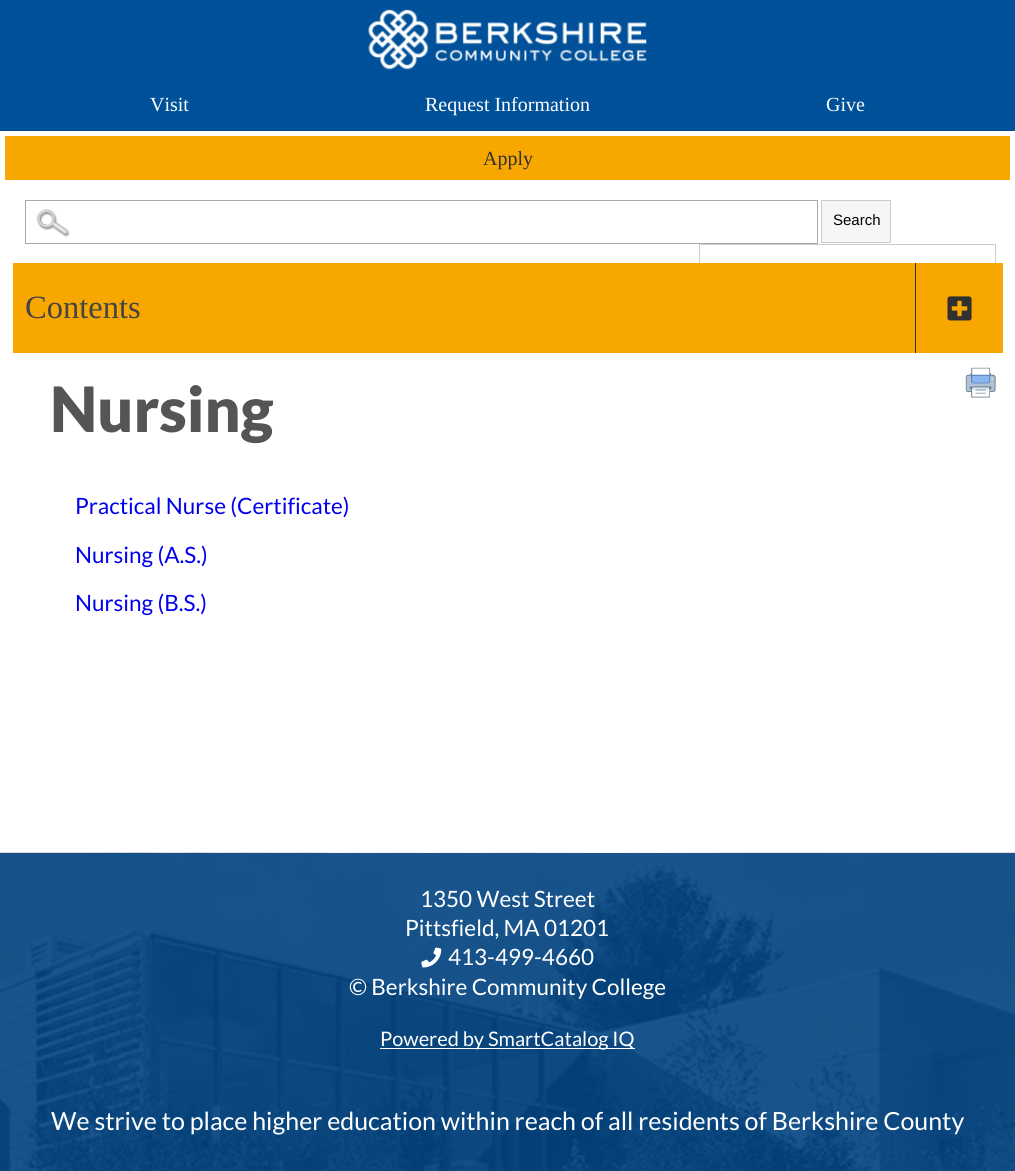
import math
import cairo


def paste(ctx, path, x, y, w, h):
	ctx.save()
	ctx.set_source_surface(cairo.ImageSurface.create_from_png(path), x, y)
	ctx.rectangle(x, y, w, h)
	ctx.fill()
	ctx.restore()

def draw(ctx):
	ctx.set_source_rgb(1, 1, 1)
	ctx.paint()
	ctx.set_source_rgb(0, 0.318, 0.6)
	ctx.rectangle(0, 0, 1015, 79)
	ctx.fill()
	paste(ctx, 'media/1.png', 368, 9, 279, 61)
	ctx.rectangle(0, 79, 1015, 52)
	ctx.fill()
	ctx.select_font_face('Liberation Serif')
	ctx.set_font_size(20)
	ctx.set_source_rgb(1, 1, 1)
	for x, y, s in [
		(150, 111, 'Visit'),
		(425, 111, 'Request Information'),
		(826, 111, 'Give'),
	]:
		ctx.move_to(x, y)
		ctx.show_text(s)
	ctx.set_source_rgb(0.969, 0.655, 0)
	ctx.rectangle(5, 136, 1005, 44)
	ctx.fill()
	ctx.set_source_rgb(0.188, 0.188, 0.188)
	ctx.move_to(483, 165)
	ctx.show_text('Apply')
	paste(ctx, 'media/2.png', 36, 209, 34, 28)
	ctx.rectangle(25.5, 200.5, 792, 43)
	ctx.set_source_rgb(0.663, 0.663, 0.663)
	ctx.set_line_width(1)
	ctx.stroke()
	ctx.set_source_rgb(0.961, 0.961, 0.961)
	ctx.rectangle(821.5, 200.5, 69, 42)
	ctx.fill_preserve()
	ctx.set_source_rgb(0.8, 0.8, 0.8)
	ctx.stroke()
	ctx.select_font_face('Liberation Sans')
	ctx.set_font_size(15)
	ctx.set_source_rgb(0, 0, 0)
	ctx.move_to(833, 225)
	ctx.show_text('Search')
	ctx.rectangle(699.5, 244.5, 296, 53)
	ctx.set_source_rgb(0.8, 0.8, 0.8)
	ctx.stroke()
	ctx.set_source_rgb(0.969, 0.655, 0)
	ctx.rectangle(13, 263, 990, 90)
	ctx.fill()
	ctx.select_font_face('Liberation Serif')
	ctx.set_font_size(32.5)
	ctx.set_source_rgb(0.267, 0.267, 0.267)
	ctx.move_to(25, 318)
	ctx.show_text('Contents')
	ctx.set_source_rgb(0.188, 0.188, 0.188)
	ctx.rectangle(915, 263, 1, 90)
	ctx.fill()
	paste(ctx, 'media/3.png', 947, 296, 25, 25)
	ctx.select_font_face('Lato Black')
	ctx.set_font_size(62.5)
	ctx.set_source_rgb(0.333, 0.333, 0.333)
	ctx.move_to(50, 432)
	ctx.show_text('Nursing')
	ctx.select_font_face('Lato')
	ctx.set_font_size(22.5)
	ctx.set_source_rgb(0, 0, 0.933)
	for x, y, s in [
		(75, 514, 'Practical Nurse (Certificate)'),
		(75, 563, 'Nursing (A.S.)'),
		(75, 611, 'Nursing (B.S.)'),
	]:
		ctx.move_to(x, y)
		ctx.show_text(s)
	paste(ctx, 'media/4.png', 965, 367, 31, 31)
	paste(ctx, 'media/5.png', 0, 852, 1015, 319)
	ctx.set_source_rgb(1, 1, 1)
	ctx.move_to(420, 907)
	ctx.show_text('1350 West Street')
	ctx.move_to(405, 936)
	ctx.show_text('Pittsfield, MA 01201')
	paste(ctx, 'media/6.png', 421, 947, 21, 21)
	ctx.move_to(448, 965)
	ctx.show_text('413-499-4660')
	ctx.move_to(349, 995)
	ctx.show_text('© Berkshire Community College')
	ctx.rectangle(380, 1048, 255, 1)
	ctx.fill()
	ctx.set_font_size(20)
	ctx.move_to(380, 1046)
	ctx.show_text('Powered by SmartCatalog IQ')
	ctx.set_font_size(25)
	ctx.move_to(51, 1130)
	ctx.show_text('We strive to place higher education within reach of all residents of Berkshire County')


surface = cairo.ImageSurface(cairo.FORMAT_RGB24, 1015, 1171)
ctx = cairo.Context(surface)
options = cairo.FontOptions()
options.set_hint_metrics(cairo.HINT_METRICS_OFF)
options.set_hint_style(cairo.HINT_STYLE_NONE)
ctx.set_font_options(options)
ctx.set_miter_limit(4)
draw(ctx)
surface.write_to_png('image.png')
